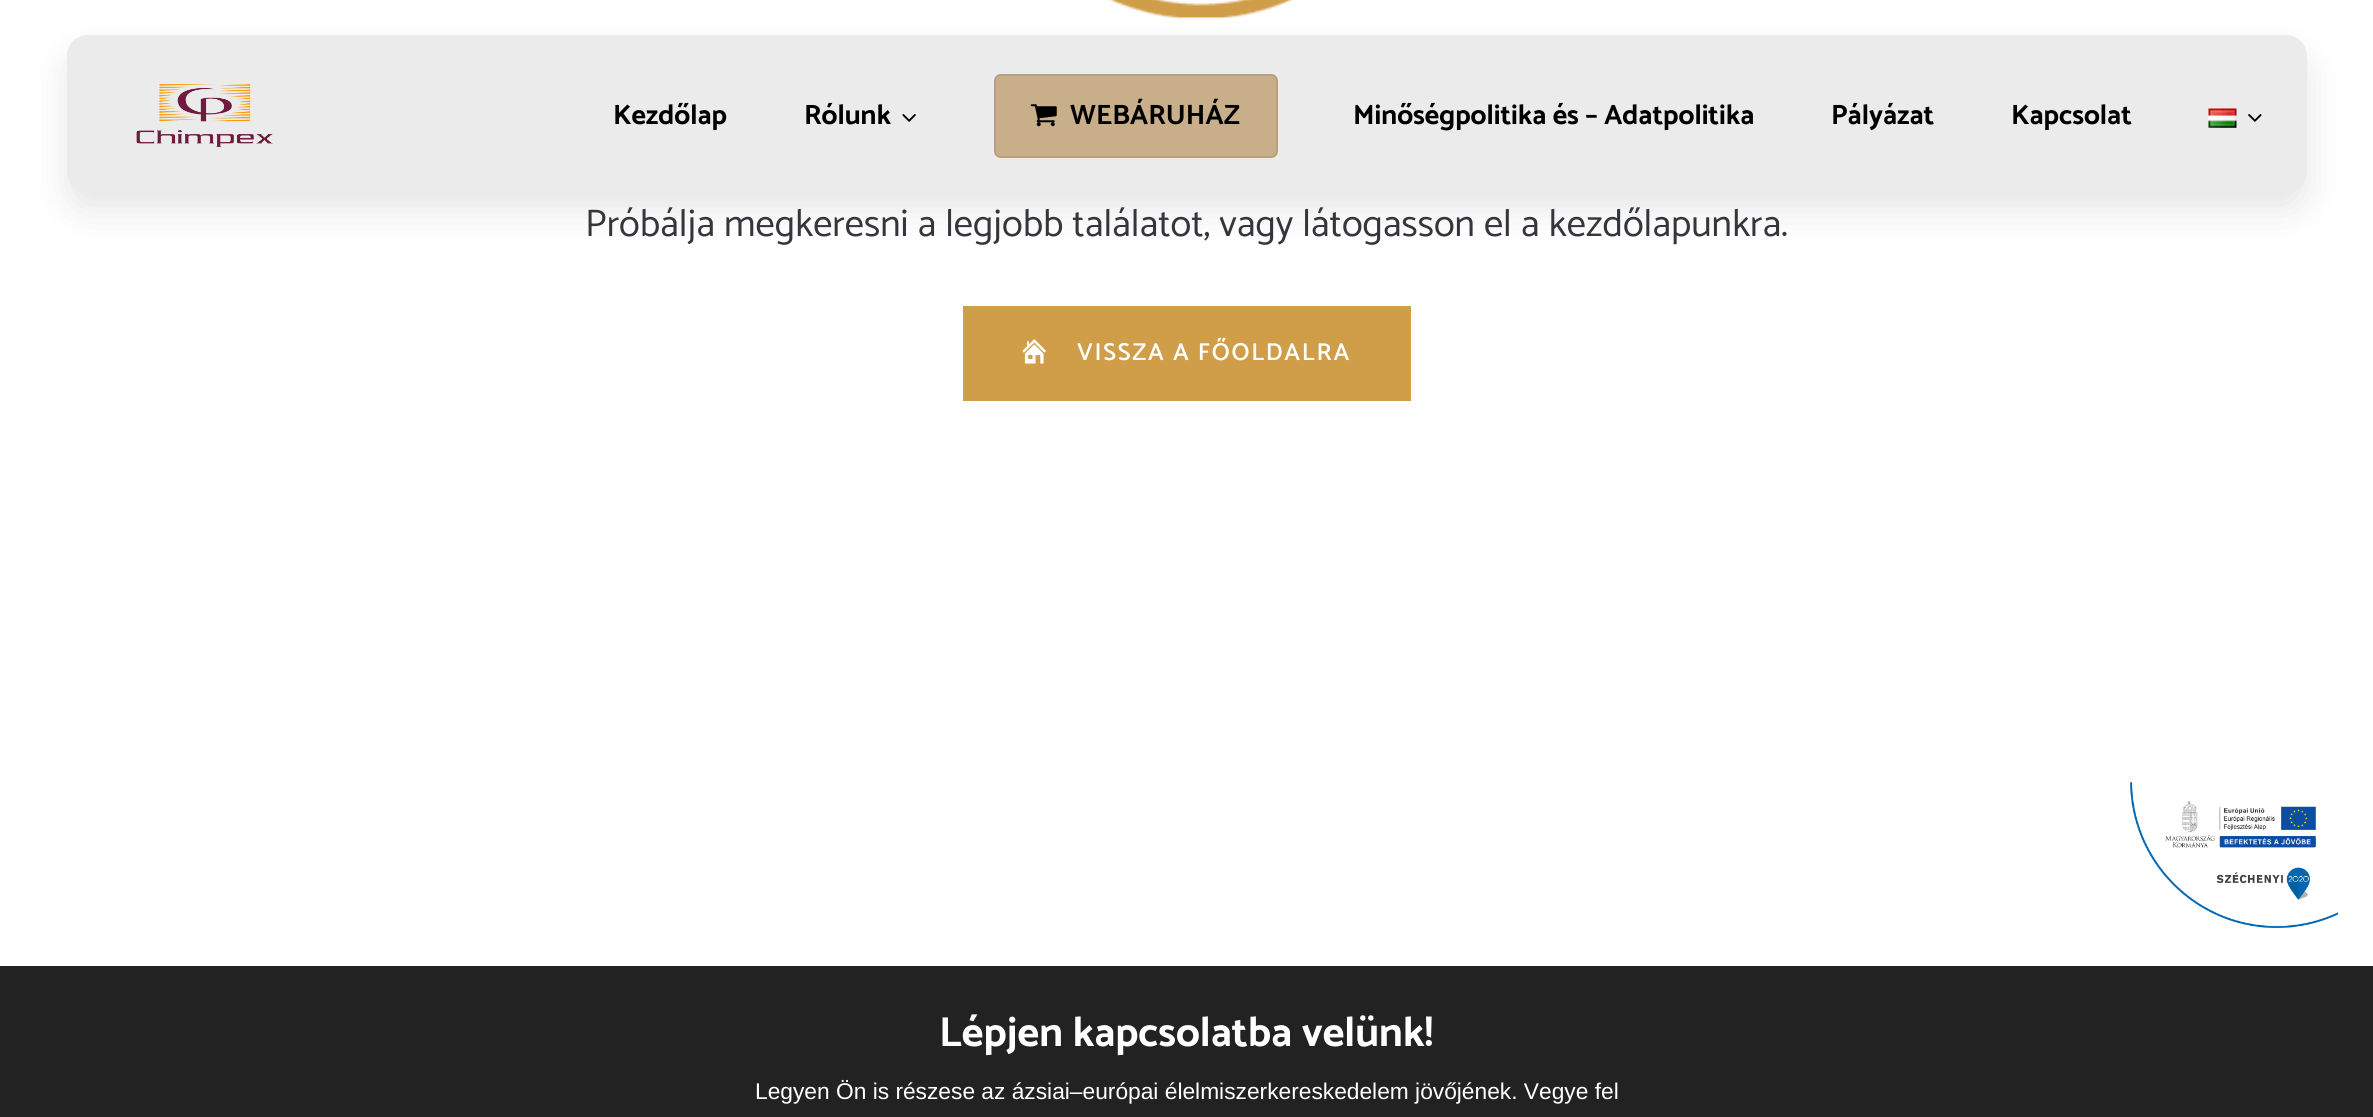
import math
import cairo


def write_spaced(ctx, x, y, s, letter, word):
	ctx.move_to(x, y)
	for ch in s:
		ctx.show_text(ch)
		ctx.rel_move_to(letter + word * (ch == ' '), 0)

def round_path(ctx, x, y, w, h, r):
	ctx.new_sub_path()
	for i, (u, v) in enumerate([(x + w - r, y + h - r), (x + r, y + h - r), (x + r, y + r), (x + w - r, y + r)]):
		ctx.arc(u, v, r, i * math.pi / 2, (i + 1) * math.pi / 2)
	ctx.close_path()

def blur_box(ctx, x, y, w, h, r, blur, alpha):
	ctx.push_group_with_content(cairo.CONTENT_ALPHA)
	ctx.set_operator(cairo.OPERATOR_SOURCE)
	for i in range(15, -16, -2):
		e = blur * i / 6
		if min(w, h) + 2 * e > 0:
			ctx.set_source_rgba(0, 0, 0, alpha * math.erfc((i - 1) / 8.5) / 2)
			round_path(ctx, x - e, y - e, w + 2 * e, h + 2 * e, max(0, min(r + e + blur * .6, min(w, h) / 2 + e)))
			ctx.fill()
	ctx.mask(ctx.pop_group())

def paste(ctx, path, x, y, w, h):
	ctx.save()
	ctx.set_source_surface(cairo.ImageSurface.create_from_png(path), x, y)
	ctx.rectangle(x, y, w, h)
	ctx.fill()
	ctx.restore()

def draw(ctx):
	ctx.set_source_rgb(1, 1, 1)
	ctx.paint()
	paste(ctx, 'media/6.png', 1107, 0, 187, 18)
	ctx.set_source_rgb(0, 0, 0)
	blur_box(ctx, 67, 53, 2240, 157, 21, 17.5, 0.1)
	ctx.set_source_rgb(0.918, 0.918, 0.918)
	round_path(ctx, 67, 35, 2240, 158, 21)
	ctx.fill()
	paste(ctx, 'media/1.png', 136, 84, 137, 63)
	ctx.select_font_face('Catamaran', cairo.FONT_SLANT_NORMAL, cairo.FONT_WEIGHT_BOLD)
	ctx.set_font_size(28)
	ctx.set_source_rgb(0, 0, 0)
	ctx.move_to(613, 124)
	ctx.show_text('Kezdőlap')
	ctx.move_to(804, 124)
	ctx.show_text('Rólunk')
	paste(ctx, 'media/2.png', 902, 114, 14, 8)
	ctx.set_source_rgb(0.784, 0.682, 0.537)
	round_path(ctx, 994, 74, 284, 84, 7)
	ctx.fill()
	round_path(ctx, 995, 75, 282, 82, 6)
	ctx.set_source_rgba(0.149, 0.153, 0.176, 0.1)
	ctx.stroke()
	paste(ctx, 'media/3.png', 1030, 104, 27, 23)
	ctx.set_source_rgb(0, 0, 0)
	for x, y, s in [
		(1070, 124, 'WEBÁRUHÁZ'),
		(1353, 124, 'Minőségpolitika és – Adatpolitika'),
		(1831, 124, 'Pályázat'),
		(2011, 124, 'Kapcsolat'),
	]:
		ctx.move_to(x, y)
		ctx.show_text(s)
	paste(ctx, 'media/4.png', 2208, 108, 29, 20)
	paste(ctx, 'media/5.png', 2248, 114, 14, 8)
	ctx.select_font_face('Catamaran')
	ctx.set_font_size(38.5)
	ctx.set_source_rgb(0.204, 0.212, 0.231)
	ctx.move_to(585, 236)
	ctx.show_text('Próbálja megkeresni a legjobb találatot, vagy látogasson el a kezdőlapunkra.')
	ctx.set_source_rgb(0.816, 0.62, 0.286)
	ctx.rectangle(963, 306, 448, 95)
	ctx.fill()
	paste(ctx, 'media/7.png', 1022, 339, 24, 25)
	ctx.select_font_face('Catamaran SemiBold')
	ctx.set_font_size(24.5)
	ctx.set_source_rgb(1, 1, 1)
	write_spaced(ctx, 1077, 360, 'VISSZA A FŐOLDALRA', 1.75, 0)
	paste(ctx, 'media/8.png', 2130, 782, 208, 146)
	ctx.set_source_rgb(0.133, 0.133, 0.133)
	ctx.rectangle(0, 966, 2373, 151)
	ctx.fill()
	ctx.select_font_face('Catamaran', cairo.FONT_SLANT_NORMAL, cairo.FONT_WEIGHT_BOLD)
	ctx.set_font_size(42)
	ctx.set_source_rgb(1, 1, 1)
	ctx.move_to(939, 1046)
	ctx.show_text('Lépjen kapcsolatba velünk!')
	ctx.select_font_face('Liberation Sans')
	ctx.set_font_size(22.75)
	ctx.move_to(755, 1099)
	ctx.show_text('Legyen Ön is részese az ázsiai–európai élelmiszerkereskedelem jövőjének. Vegye fel')


surface = cairo.ImageSurface(cairo.FORMAT_RGB24, 2373, 1117)
ctx = cairo.Context(surface)
options = cairo.FontOptions()
options.set_hint_metrics(cairo.HINT_METRICS_OFF)
options.set_hint_style(cairo.HINT_STYLE_NONE)
ctx.set_font_options(options)
ctx.set_miter_limit(4)
draw(ctx)
surface.write_to_png('image.png')
